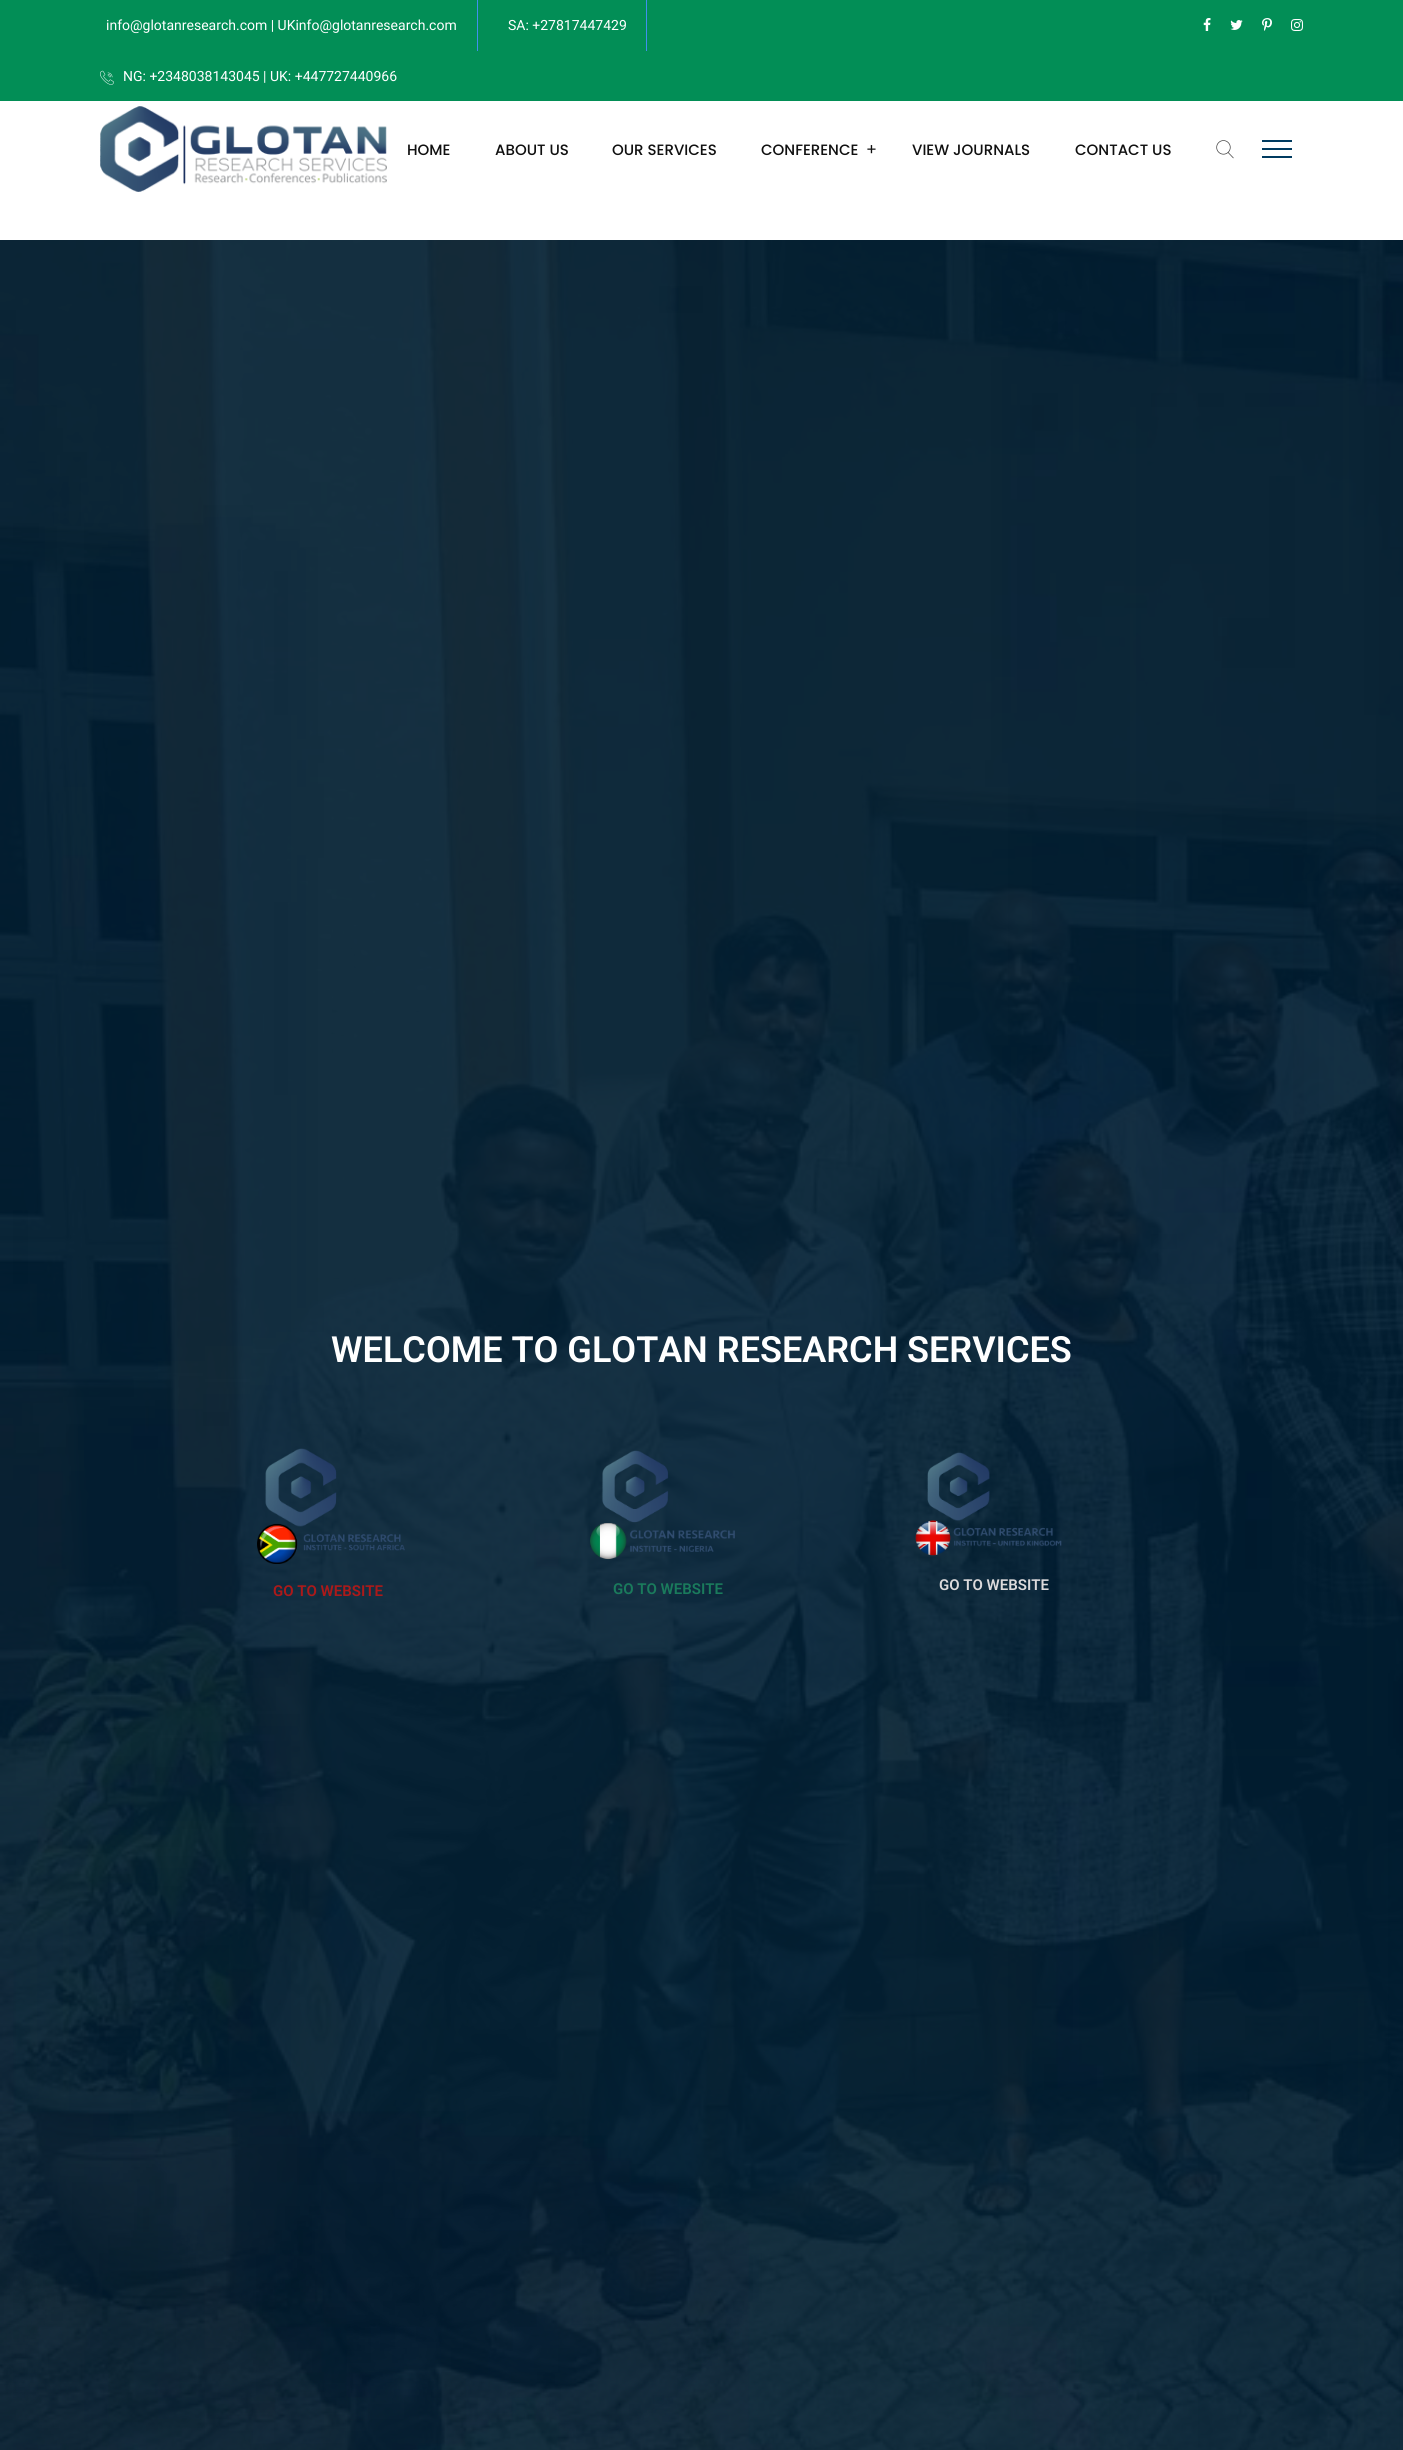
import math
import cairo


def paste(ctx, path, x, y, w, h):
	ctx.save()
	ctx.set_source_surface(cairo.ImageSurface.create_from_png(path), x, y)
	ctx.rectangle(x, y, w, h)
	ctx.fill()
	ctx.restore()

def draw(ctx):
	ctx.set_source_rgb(1, 1, 1)
	ctx.paint()
	ctx.set_source_rgb(0.008, 0.557, 0.337)
	ctx.rectangle(0, 0, 1403, 101)
	ctx.fill()
	ctx.set_source_rgb(0.251, 0.561, 0.941)
	ctx.rectangle(477, 0, 1, 51)
	ctx.fill()
	ctx.select_font_face('Roboto')
	ctx.set_font_size(14)
	ctx.set_source_rgb(1, 1, 1)
	ctx.move_to(106, 30)
	ctx.show_text('info@glotanresearch.com | UKinfo@glotanresearch.com')
	ctx.set_source_rgb(0.251, 0.561, 0.941)
	ctx.rectangle(646, 0, 1, 51)
	ctx.fill()
	ctx.set_source_rgb(1, 1, 1)
	ctx.move_to(508, 30)
	ctx.show_text('SA: +27817447429')
	paste(ctx, 'media/1.png', 100, 70, 14, 15)
	ctx.move_to(123, 81)
	ctx.show_text('NG: +2348038143045 | UK: +447727440966')
	paste(ctx, 'media/2.png', 1203, 18, 8, 13)
	paste(ctx, 'media/3.png', 1230, 20, 13, 10)
	paste(ctx, 'media/4.png', 1262, 18, 10, 13)
	paste(ctx, 'media/5.png', 1291, 19, 12, 12)
	paste(ctx, 'media/6.png', 100, 106, 287, 86)
	ctx.select_font_face('Poppins Medium')
	ctx.set_font_size(15)
	ctx.set_source_rgb(0.063, 0.063, 0.063)
	for x, y, s in [
		(407, 155, 'HOME'),
		(495, 155, 'ABOUT US'),
		(612, 155, 'OUR SERVICES'),
		(761, 155, 'CONFERENCE'),
	]:
		ctx.move_to(x, y)
		ctx.show_text(s)
	ctx.select_font_face('Poppins')
	ctx.set_font_size(16)
	ctx.move_to(866, 155)
	ctx.show_text('+')
	ctx.select_font_face('Poppins Medium')
	ctx.set_font_size(15)
	ctx.move_to(912, 155)
	ctx.show_text('VIEW JOURNALS')
	ctx.move_to(1075, 155)
	ctx.show_text('CONTACT US')
	paste(ctx, 'media/7.png', 1216, 140, 18, 19)
	ctx.set_source_rgb(0, 0.231, 0.376)
	ctx.rectangle(1262, 140, 30, 2)
	ctx.rectangle(1262, 148, 30, 2)
	ctx.rectangle(1262, 156, 30, 2)
	ctx.fill()
	paste(ctx, 'media/8.png', 0, 240, 1403, 2210)
	paste(ctx, 'media/9.png', 0, 240, 1403, 2210)
	ctx.select_font_face('Roboto SemiBold')
	ctx.set_font_size(36)
	ctx.set_source_rgb(1, 1, 1)
	ctx.move_to(331, 1362)
	ctx.show_text('WELCOME TO GLOTAN RESEARCH SERVICES')
	paste(ctx, 'media/10.png', 257, 1448, 148, 116)
	ctx.set_font_size(15)
	ctx.set_source_rgb(0.678, 0.098, 0.098)
	ctx.move_to(273, 1596)
	ctx.show_text('GO TO WEBSITE')
	paste(ctx, 'media/11.png', 590, 1450, 145, 110)
	ctx.set_source_rgb(0.102, 0.482, 0.361)
	ctx.move_to(613, 1594)
	ctx.show_text('GO TO WEBSITE')
	paste(ctx, 'media/12.png', 915, 1452, 147, 104)
	ctx.set_source_rgb(0.863, 0.855, 0.863)
	ctx.move_to(939, 1590)
	ctx.show_text('GO TO WEBSITE')


surface = cairo.ImageSurface(cairo.FORMAT_RGB24, 1403, 2450)
ctx = cairo.Context(surface)
options = cairo.FontOptions()
options.set_hint_metrics(cairo.HINT_METRICS_OFF)
options.set_hint_style(cairo.HINT_STYLE_NONE)
ctx.set_font_options(options)
ctx.set_miter_limit(4)
draw(ctx)
surface.write_to_png('image.png')
